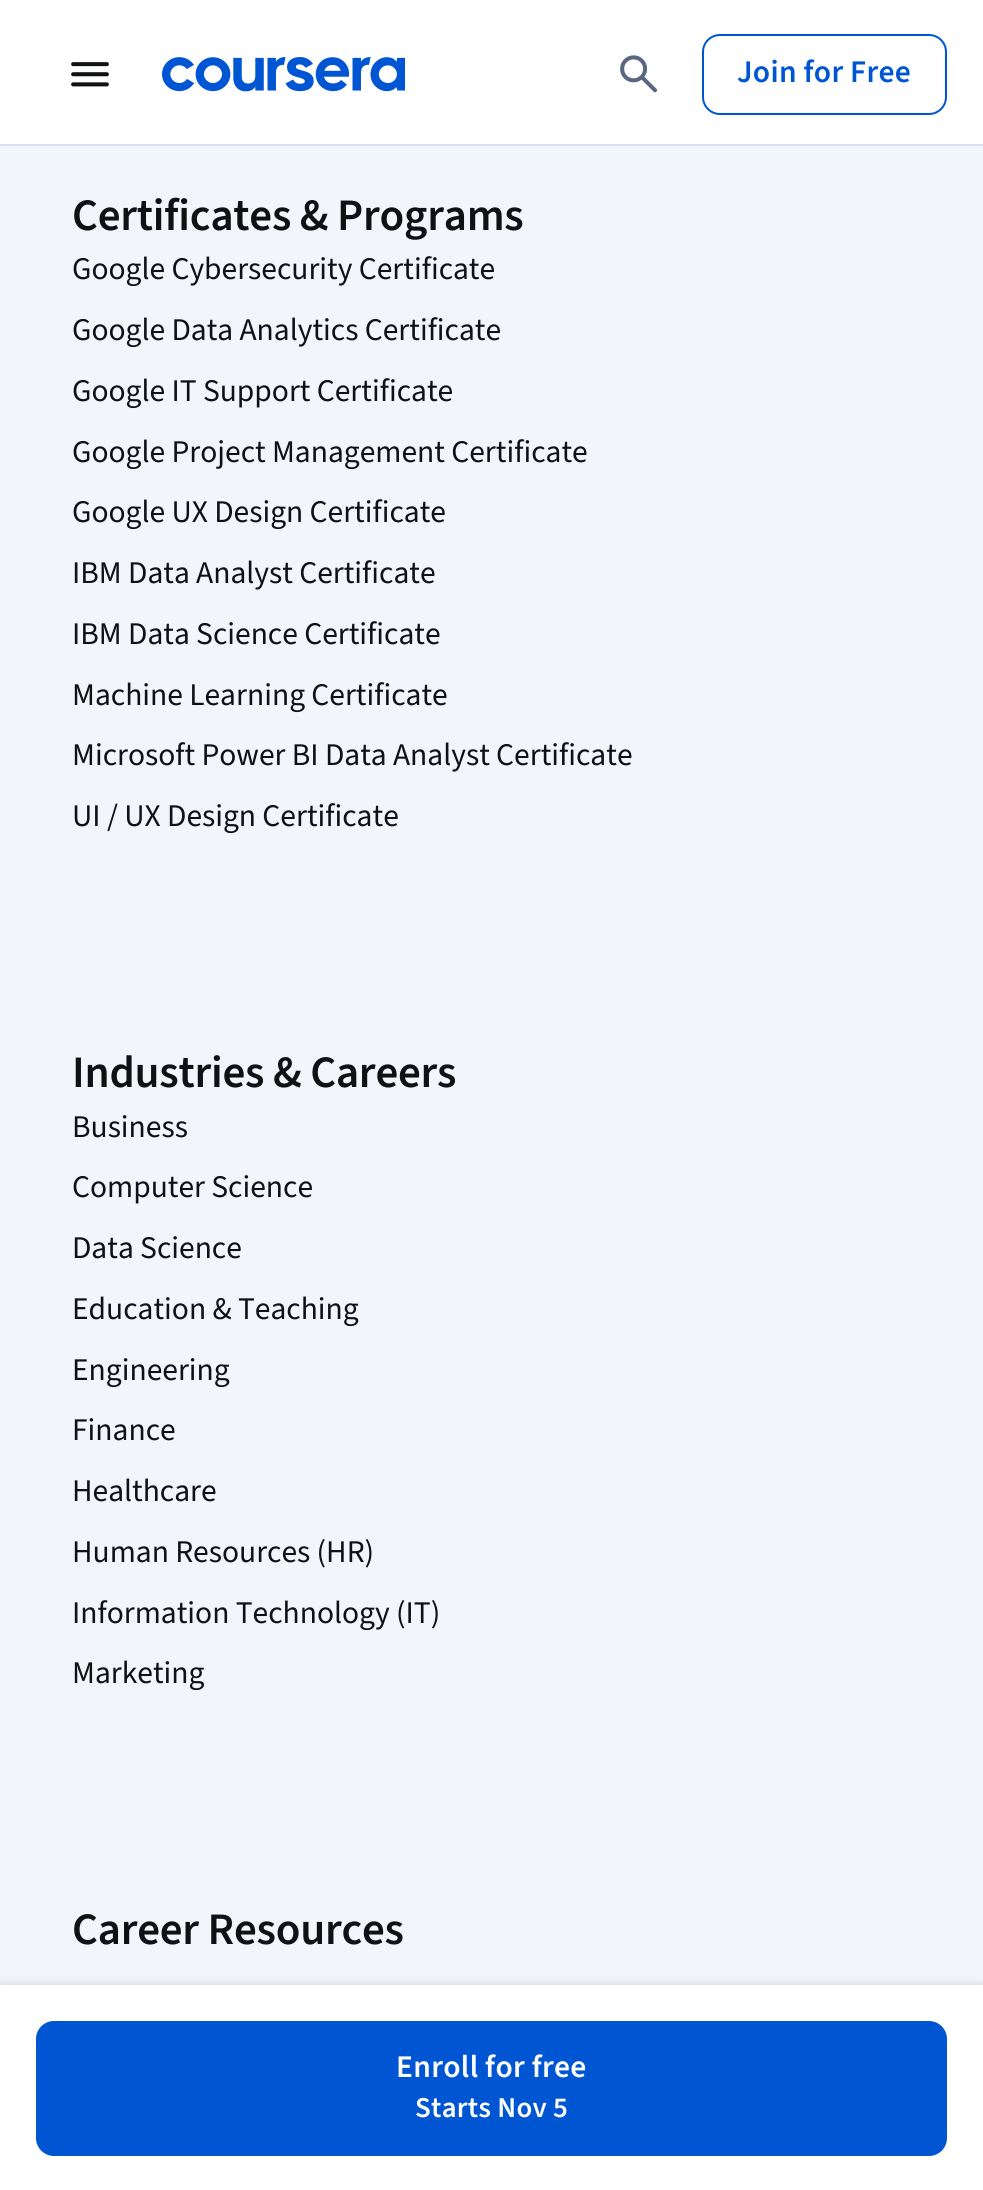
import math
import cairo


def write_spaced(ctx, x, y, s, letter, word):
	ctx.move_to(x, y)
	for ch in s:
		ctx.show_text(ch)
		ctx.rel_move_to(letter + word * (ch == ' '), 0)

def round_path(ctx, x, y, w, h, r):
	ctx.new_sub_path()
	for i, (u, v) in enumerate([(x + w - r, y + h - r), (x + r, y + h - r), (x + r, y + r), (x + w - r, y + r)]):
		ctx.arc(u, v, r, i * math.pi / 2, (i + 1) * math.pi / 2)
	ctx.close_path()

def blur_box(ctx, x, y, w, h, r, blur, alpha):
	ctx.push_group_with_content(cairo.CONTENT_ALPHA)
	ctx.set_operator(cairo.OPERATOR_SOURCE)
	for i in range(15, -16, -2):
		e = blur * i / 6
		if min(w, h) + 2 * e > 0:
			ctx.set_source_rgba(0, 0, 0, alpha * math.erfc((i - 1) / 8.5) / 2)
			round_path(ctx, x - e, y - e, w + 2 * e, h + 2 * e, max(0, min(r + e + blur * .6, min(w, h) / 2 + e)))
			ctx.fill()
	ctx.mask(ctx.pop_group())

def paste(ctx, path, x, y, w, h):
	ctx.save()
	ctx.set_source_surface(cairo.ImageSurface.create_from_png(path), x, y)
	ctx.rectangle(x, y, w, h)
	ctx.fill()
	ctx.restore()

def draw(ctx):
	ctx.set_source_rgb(0.949, 0.961, 0.98)
	ctx.paint()
	ctx.set_source_rgb(1, 1, 1)
	ctx.rectangle(0, 0, 983, 144)
	ctx.fill()
	ctx.set_source_rgb(0.855, 0.882, 0.929)
	ctx.rectangle(0, 144, 983, 2)
	ctx.fill()
	paste(ctx, 'media/1.png', 71, 62, 38, 25)
	paste(ctx, 'media/2.png', 162, 57, 243, 35)
	paste(ctx, 'media/3.png', 620, 55, 38, 38)
	round_path(ctx, 703, 35, 243, 79, 17)
	ctx.set_source_rgb(0, 0.337, 0.824)
	ctx.stroke()
	ctx.select_font_face('Source Sans 3 SemiBold')
	ctx.set_font_size(31.5)
	write_spaced(ctx, 737, 82, 'Join for Free', 0.3, 0)
	ctx.set_font_size(45)
	ctx.set_source_rgb(0.059, 0.067, 0.078)
	write_spaced(ctx, 72, 230, 'Certificates & Programs', -0.25, 0)
	ctx.select_font_face('Source Sans 3')
	ctx.set_font_size(31.5)
	for x, y, s in [
		(72, 279, 'Google Cybersecurity Certificate'),
		(72, 340, 'Google Data Analytics Certificate'),
		(72, 401, 'Google IT Support Certificate'),
		(72, 462, 'Google Project Management Certificate'),
		(72, 522, 'Google UX Design Certificate'),
		(72, 583, 'IBM Data Analyst Certificate'),
		(72, 644, 'IBM Data Science Certificate'),
		(72, 705, 'Machine Learning Certificate'),
		(72, 765, 'Microsoft Power BI Data Analyst Certificate'),
		(72, 826, 'UI / UX Design Certificate'),
	]:
		ctx.move_to(x, y)
		ctx.show_text(s)
	ctx.select_font_face('Source Sans 3 SemiBold')
	ctx.set_font_size(45)
	write_spaced(ctx, 72, 1087, 'Industries & Careers', -0.25, 0)
	ctx.select_font_face('Source Sans 3')
	ctx.set_font_size(31.5)
	for x, y, s in [
		(72, 1137, 'Business'),
		(72, 1197, 'Computer Science'),
		(72, 1258, 'Data Science'),
		(72, 1319, 'Education & Teaching'),
		(72, 1380, 'Engineering'),
		(72, 1440, 'Finance'),
		(72, 1501, 'Healthcare'),
		(72, 1562, 'Human Resources (HR)'),
		(72, 1623, 'Information Technology (IT)'),
		(72, 1683, 'Marketing'),
	]:
		ctx.move_to(x, y)
		ctx.show_text(s)
	ctx.select_font_face('Source Sans 3 SemiBold')
	ctx.set_font_size(45)
	write_spaced(ctx, 72, 1944, 'Career Resources', -0.25, 0)
	ctx.set_source_rgb(0, 0, 0)
	blur_box(ctx, 0, 1985, 983, 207, 0, 4.5, 0.15)
	ctx.set_source_rgb(1, 1, 1)
	ctx.rectangle(0, 1985, 983, 205)
	ctx.fill()
	ctx.set_source_rgb(0, 0.337, 0.824)
	round_path(ctx, 37, 2022, 909, 133, 17)
	ctx.fill_preserve()
	ctx.stroke()
	ctx.set_font_size(31.5)
	ctx.set_source_rgb(1, 1, 1)
	write_spaced(ctx, 396, 2077, 'Enroll for free', 0.3, 0)
	ctx.set_font_size(28.75)
	write_spaced(ctx, 415, 2117, 'Starts Nov 5', 0.3, 0)


surface = cairo.ImageSurface(cairo.FORMAT_RGB24, 983, 2190)
ctx = cairo.Context(surface)
options = cairo.FontOptions()
options.set_hint_metrics(cairo.HINT_METRICS_OFF)
options.set_hint_style(cairo.HINT_STYLE_NONE)
ctx.set_font_options(options)
ctx.set_miter_limit(4)
draw(ctx)
surface.write_to_png('image.png')
